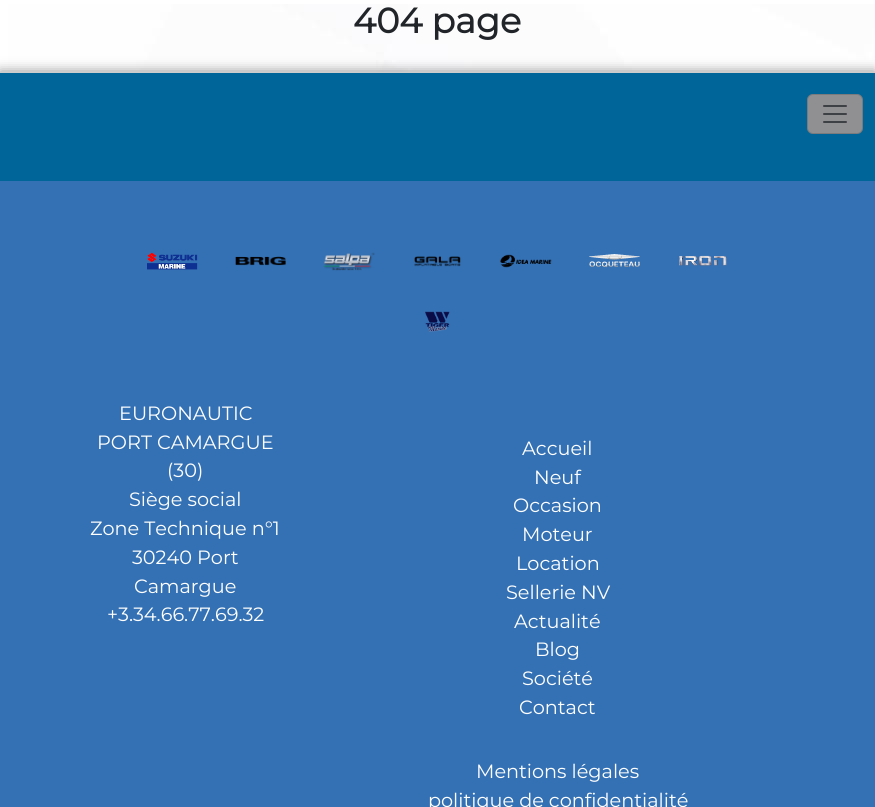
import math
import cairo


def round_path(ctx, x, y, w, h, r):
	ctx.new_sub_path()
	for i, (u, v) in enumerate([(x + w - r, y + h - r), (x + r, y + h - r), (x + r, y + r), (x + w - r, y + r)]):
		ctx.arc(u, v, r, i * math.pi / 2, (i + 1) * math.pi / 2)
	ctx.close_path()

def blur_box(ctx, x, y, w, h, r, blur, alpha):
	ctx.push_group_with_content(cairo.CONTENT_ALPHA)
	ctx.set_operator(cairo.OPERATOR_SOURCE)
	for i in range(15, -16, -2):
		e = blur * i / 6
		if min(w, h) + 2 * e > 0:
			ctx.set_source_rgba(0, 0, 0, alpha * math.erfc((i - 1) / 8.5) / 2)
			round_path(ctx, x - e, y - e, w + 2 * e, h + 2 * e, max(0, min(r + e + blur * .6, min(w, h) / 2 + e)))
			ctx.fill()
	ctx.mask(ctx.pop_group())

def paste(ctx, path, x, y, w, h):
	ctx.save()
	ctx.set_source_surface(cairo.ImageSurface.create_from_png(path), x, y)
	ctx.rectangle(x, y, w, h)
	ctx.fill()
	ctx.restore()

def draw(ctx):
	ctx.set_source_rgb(1, 1, 1)
	ctx.paint()
	paste(ctx, 'media/1.png', 8, 4, 867, 68)
	ctx.select_font_face('Montserrat', cairo.FONT_SLANT_NORMAL, cairo.FONT_WEIGHT_BOLD)
	ctx.set_font_size(35)
	ctx.set_source_rgb(0.129, 0.145, 0.161)
	ctx.move_to(353, 33)
	ctx.show_text('404 page')
	ctx.set_source_rgb(0, 0, 0)
	blur_box(ctx, 0, 71, 875, 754, 0, 6, 0.4)
	ctx.set_source_rgb(0, 0.4, 0.6)
	ctx.rectangle(0, 73, 875, 108)
	ctx.fill()
	ctx.set_source_rgb(0.565, 0.565, 0.576)
	round_path(ctx, 807, 94, 56, 40, 6)
	ctx.fill()
	round_path(ctx, 807.5, 94.5, 55, 39, 5.5)
	ctx.set_source_rgba(0, 0, 0, 0.15)
	ctx.set_line_width(1)
	ctx.stroke()
	paste(ctx, 'media/2.png', 823, 105, 24, 18)
	ctx.set_source_rgb(0.8, 0.8, 0.8)
	ctx.rectangle(0, 72, 875, 1)
	ctx.fill()
	ctx.set_source_rgb(0.204, 0.443, 0.706)
	ctx.rectangle(0, 181, 875, 626)
	ctx.fill()
	paste(ctx, 'media/3.png', 147, 252, 51, 18)
	paste(ctx, 'media/4.png', 235, 256, 51, 10)
	paste(ctx, 'media/5.png', 323, 252, 52, 19)
	paste(ctx, 'media/6.png', 414, 256, 47, 11)
	paste(ctx, 'media/7.png', 500, 254, 52, 14)
	paste(ctx, 'media/8.png', 589, 254, 51, 14)
	paste(ctx, 'media/9.png', 679, 255, 48, 11)
	paste(ctx, 'media/10.png', 425, 311, 25, 21)
	ctx.select_font_face('Montserrat Thin')
	ctx.set_font_size(19.25)
	ctx.set_source_rgb(1, 1, 1)
	for x, y, s in [
		(119, 420, 'EURONAUTIC'),
		(97, 449, 'PORT CAMARGUE'),
		(167, 477, '(30)'),
		(129, 506, 'Siège social'),
		(90, 535, 'Zone Technique n°1'),
		(132, 564, '30240 Port'),
		(134, 593, 'Camargue'),
		(107, 621, '+3.34.66.77.69.32'),
		(522, 455, 'Accueil'),
		(534, 484, 'Neuf'),
		(513, 512, 'Occasion'),
		(522, 541, 'Moteur'),
		(516, 570, 'Location'),
		(506, 599, 'Sellerie NV'),
		(514, 628, 'Actualité'),
		(535, 656, 'Blog'),
		(522, 685, 'Société'),
		(519, 714, 'Contact'),
		(476, 778, 'Mentions légales'),
		(428, 807, 'politique de confidentialité'),
	]:
		ctx.move_to(x, y)
		ctx.show_text(s)


surface = cairo.ImageSurface(cairo.FORMAT_RGB24, 875, 807)
ctx = cairo.Context(surface)
options = cairo.FontOptions()
options.set_hint_metrics(cairo.HINT_METRICS_OFF)
options.set_hint_style(cairo.HINT_STYLE_NONE)
ctx.set_font_options(options)
ctx.set_miter_limit(4)
draw(ctx)
surface.write_to_png('image.png')
